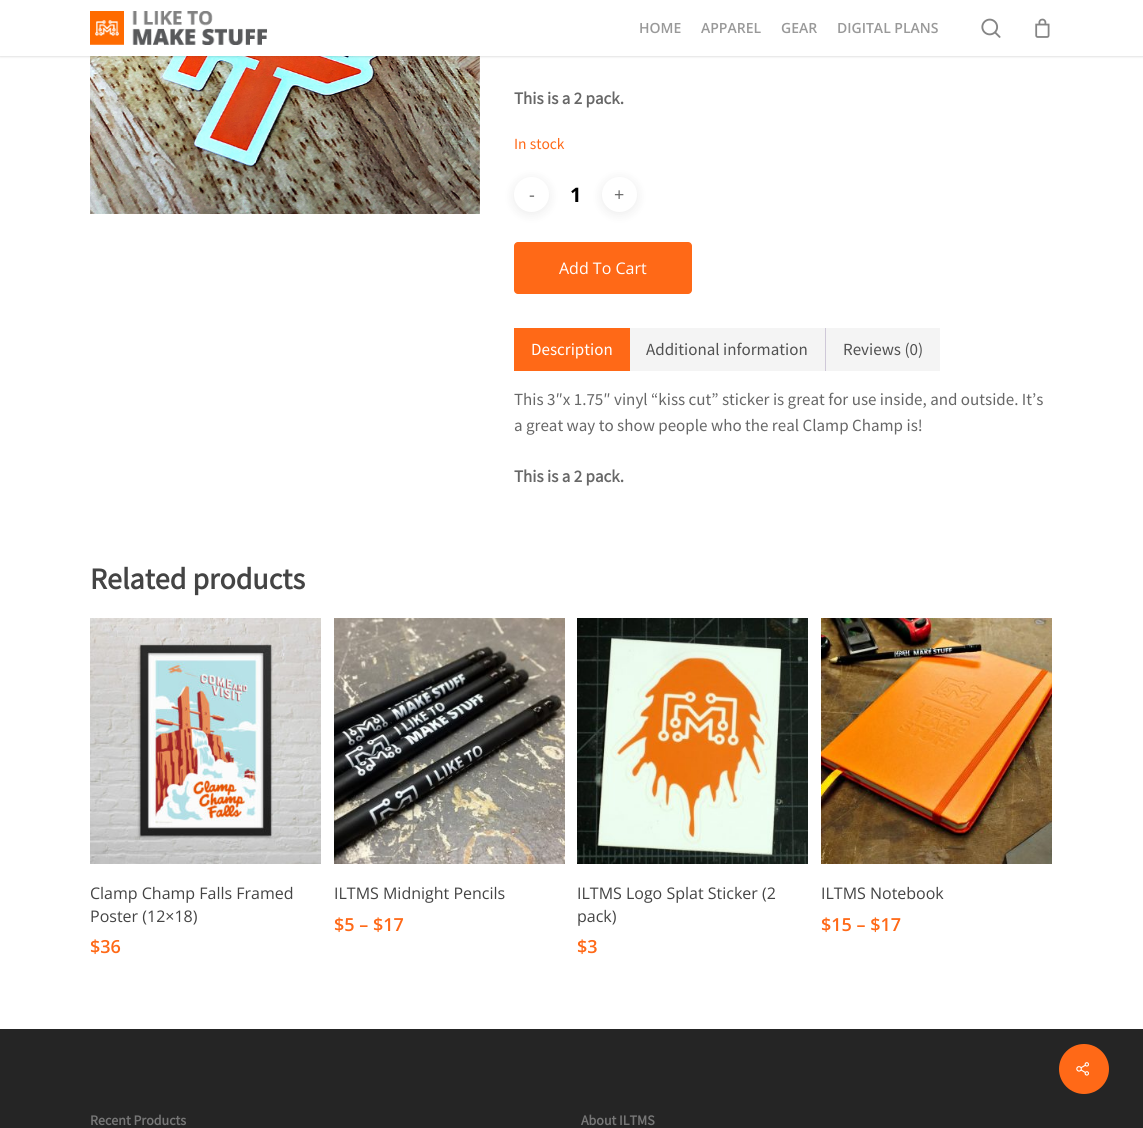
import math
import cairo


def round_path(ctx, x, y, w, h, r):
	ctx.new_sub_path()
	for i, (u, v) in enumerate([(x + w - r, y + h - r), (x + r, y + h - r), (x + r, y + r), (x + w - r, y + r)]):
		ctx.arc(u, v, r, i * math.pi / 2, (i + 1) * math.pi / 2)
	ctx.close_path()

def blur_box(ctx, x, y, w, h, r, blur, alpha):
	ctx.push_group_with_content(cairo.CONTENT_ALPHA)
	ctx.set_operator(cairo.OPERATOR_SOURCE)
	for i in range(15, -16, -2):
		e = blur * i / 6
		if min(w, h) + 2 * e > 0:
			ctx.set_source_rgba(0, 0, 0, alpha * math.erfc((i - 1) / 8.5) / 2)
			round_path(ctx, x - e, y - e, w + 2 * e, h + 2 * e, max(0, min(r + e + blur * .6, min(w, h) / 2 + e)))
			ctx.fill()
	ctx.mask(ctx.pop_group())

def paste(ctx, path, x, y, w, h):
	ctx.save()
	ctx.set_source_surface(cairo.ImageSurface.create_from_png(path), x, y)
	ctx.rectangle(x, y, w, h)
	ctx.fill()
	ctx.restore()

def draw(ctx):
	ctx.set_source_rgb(1, 1, 1)
	ctx.paint()
	paste(ctx, 'media/4.png', 90, 56, 390, 158)
	ctx.set_source_rgb(0, 0, 0)
	blur_box(ctx, 0, -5, 1143, 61, 0, 1.5, 0.22)
	ctx.set_source_rgb(1, 1, 1)
	ctx.rectangle(0, 0, 1143, 56)
	ctx.fill()
	paste(ctx, 'media/1.png', 90, 11, 177, 34)
	ctx.select_font_face('Open Sans SemiBold')
	ctx.set_font_size(14)
	ctx.set_source_rgb(0.6, 0.6, 0.6)
	for x, y, s in [
		(639, 33, 'HOME'),
		(701, 33, 'APPAREL'),
		(781, 33, 'GEAR'),
		(837, 33, 'DIGITAL PLANS'),
	]:
		ctx.move_to(x, y)
		ctx.show_text(s)
	paste(ctx, 'media/2.png', 981, 18, 20, 20)
	paste(ctx, 'media/3.png', 1035, 18, 15, 20)
	ctx.select_font_face('Source Sans Pro', cairo.FONT_SLANT_NORMAL, cairo.FONT_WEIGHT_BOLD)
	ctx.set_font_size(17)
	ctx.set_source_rgb(0.404, 0.404, 0.404)
	ctx.move_to(514, 104)
	ctx.show_text('This is a 2 pack.')
	ctx.select_font_face('Source Sans Pro')
	ctx.set_font_size(15.5)
	ctx.set_source_rgb(1, 0.412, 0.09)
	ctx.move_to(514, 149)
	ctx.show_text('In stock')
	ctx.set_source_rgb(0, 0, 0)
	blur_box(ctx, 514, 179, 35, 35, 17.5, 6, 0.08)
	ctx.set_source_rgb(1, 1, 1)
	ctx.arc(531.5, 194.5, 17.5, 0, 2 * math.pi)
	ctx.fill()
	ctx.select_font_face('Open Sans')
	ctx.set_font_size(18)
	ctx.set_source_rgb(0.404, 0.404, 0.404)
	ctx.move_to(529, 201)
	ctx.show_text('-')
	ctx.select_font_face('Open Sans', cairo.FONT_SLANT_NORMAL, cairo.FONT_WEIGHT_BOLD)
	ctx.set_font_size(20)
	ctx.set_source_rgb(0, 0, 0)
	ctx.move_to(570, 202)
	ctx.show_text('1')
	ctx.set_source_rgb(0, 0, 0)
	blur_box(ctx, 602, 179, 35, 35, 17.5, 6, 0.08)
	ctx.set_source_rgb(1, 1, 1)
	ctx.arc(619.5, 194.5, 17.5, 0, 2 * math.pi)
	ctx.fill()
	ctx.select_font_face('Open Sans')
	ctx.set_font_size(18)
	ctx.set_source_rgb(0.404, 0.404, 0.404)
	ctx.move_to(614, 201)
	ctx.show_text('+')
	ctx.set_source_rgb(1, 0.412, 0.09)
	round_path(ctx, 514, 242, 178, 52, 4)
	ctx.fill()
	ctx.set_font_size(16)
	ctx.set_source_rgb(1, 1, 1)
	ctx.move_to(559, 274)
	ctx.show_text('Add To Cart')
	ctx.set_source_rgb(1, 0.412, 0.09)
	ctx.rectangle(514, 328, 116, 43)
	ctx.fill()
	ctx.select_font_face('Source Sans Pro')
	ctx.set_font_size(17)
	ctx.set_source_rgb(1, 1, 1)
	ctx.move_to(531, 355)
	ctx.show_text('Description')
	ctx.set_source_rgb(0.957, 0.957, 0.957)
	ctx.rectangle(630, 328, 195, 43)
	ctx.fill()
	ctx.set_source_rgb(0.812, 0.784, 0.847)
	ctx.rectangle(825, 328, 1, 43)
	ctx.fill()
	ctx.set_source_rgb(0.318, 0.318, 0.318)
	ctx.move_to(646, 355)
	ctx.show_text('Additional information')
	ctx.set_source_rgb(0.957, 0.957, 0.957)
	ctx.rectangle(826, 328, 114, 43)
	ctx.fill()
	ctx.set_source_rgb(0.318, 0.318, 0.318)
	ctx.move_to(843, 355)
	ctx.show_text('Reviews (0)')
	ctx.set_source_rgb(0.404, 0.404, 0.404)
	ctx.move_to(514, 405)
	ctx.show_text('This 3″x 1.75″ vinyl “kiss cut” sticker is great for use inside, and outside. It’s')
	ctx.move_to(514, 431)
	ctx.show_text('a great way to show people who the real Clamp Champ is!')
	ctx.select_font_face('Source Sans Pro', cairo.FONT_SLANT_NORMAL, cairo.FONT_WEIGHT_BOLD)
	ctx.move_to(514, 482)
	ctx.show_text('This is a 2 pack.')
	ctx.set_font_size(30)
	ctx.set_source_rgb(0.267, 0.267, 0.267)
	ctx.move_to(90, 589)
	ctx.show_text('Related products')
	paste(ctx, 'media/5.png', 90, 618, 231, 246)
	ctx.select_font_face('Open Sans')
	ctx.set_font_size(16)
	ctx.move_to(90, 899)
	ctx.show_text('Clamp Champ Falls Framed')
	ctx.move_to(90, 922)
	ctx.show_text('Poster (12×18)')
	ctx.select_font_face('Open Sans SemiBold')
	ctx.set_font_size(18)
	ctx.set_source_rgb(1, 0.412, 0.09)
	ctx.move_to(90, 953)
	ctx.show_text('$36')
	paste(ctx, 'media/6.png', 334, 618, 231, 246)
	ctx.select_font_face('Open Sans')
	ctx.set_font_size(16)
	ctx.set_source_rgb(0.267, 0.267, 0.267)
	ctx.move_to(334, 899)
	ctx.show_text('ILTMS Midnight Pencils')
	ctx.select_font_face('Open Sans SemiBold')
	ctx.set_font_size(18)
	ctx.set_source_rgb(1, 0.412, 0.09)
	ctx.move_to(334, 931)
	ctx.show_text('$5 – $17')
	paste(ctx, 'media/7.png', 577, 618, 231, 246)
	ctx.select_font_face('Open Sans')
	ctx.set_font_size(16)
	ctx.set_source_rgb(0.267, 0.267, 0.267)
	ctx.move_to(577, 899)
	ctx.show_text('ILTMS Logo Splat Sticker (2')
	ctx.move_to(577, 922)
	ctx.show_text('pack)')
	ctx.select_font_face('Open Sans SemiBold')
	ctx.set_font_size(18)
	ctx.set_source_rgb(1, 0.412, 0.09)
	ctx.move_to(577, 953)
	ctx.show_text('$3')
	paste(ctx, 'media/8.png', 821, 618, 231, 246)
	ctx.select_font_face('Open Sans')
	ctx.set_font_size(16)
	ctx.set_source_rgb(0.267, 0.267, 0.267)
	ctx.move_to(821, 899)
	ctx.show_text('ILTMS Notebook')
	ctx.select_font_face('Open Sans SemiBold')
	ctx.set_font_size(18)
	ctx.set_source_rgb(1, 0.412, 0.09)
	ctx.move_to(821, 931)
	ctx.show_text('$15 – $17')
	ctx.set_source_rgb(0.145, 0.145, 0.145)
	ctx.rectangle(0, 1029, 1143, 99)
	ctx.fill()
	ctx.set_source_rgb(1, 0.412, 0.09)
	ctx.arc(1084, 1069, 25, 0, 2 * math.pi)
	ctx.fill()
	paste(ctx, 'media/9.png', 1076, 1062, 13, 14)
	ctx.select_font_face('Source Sans Pro', cairo.FONT_SLANT_NORMAL, cairo.FONT_WEIGHT_BOLD)
	ctx.set_font_size(14)
	ctx.set_source_rgb(0.467, 0.467, 0.467)
	ctx.move_to(90, 1125)
	ctx.show_text('Recent Products')
	ctx.move_to(581, 1125)
	ctx.show_text('About ILTMS')


surface = cairo.ImageSurface(cairo.FORMAT_RGB24, 1143, 1128)
ctx = cairo.Context(surface)
options = cairo.FontOptions()
options.set_hint_metrics(cairo.HINT_METRICS_OFF)
options.set_hint_style(cairo.HINT_STYLE_NONE)
ctx.set_font_options(options)
ctx.set_miter_limit(4)
draw(ctx)
surface.write_to_png('image.png')
